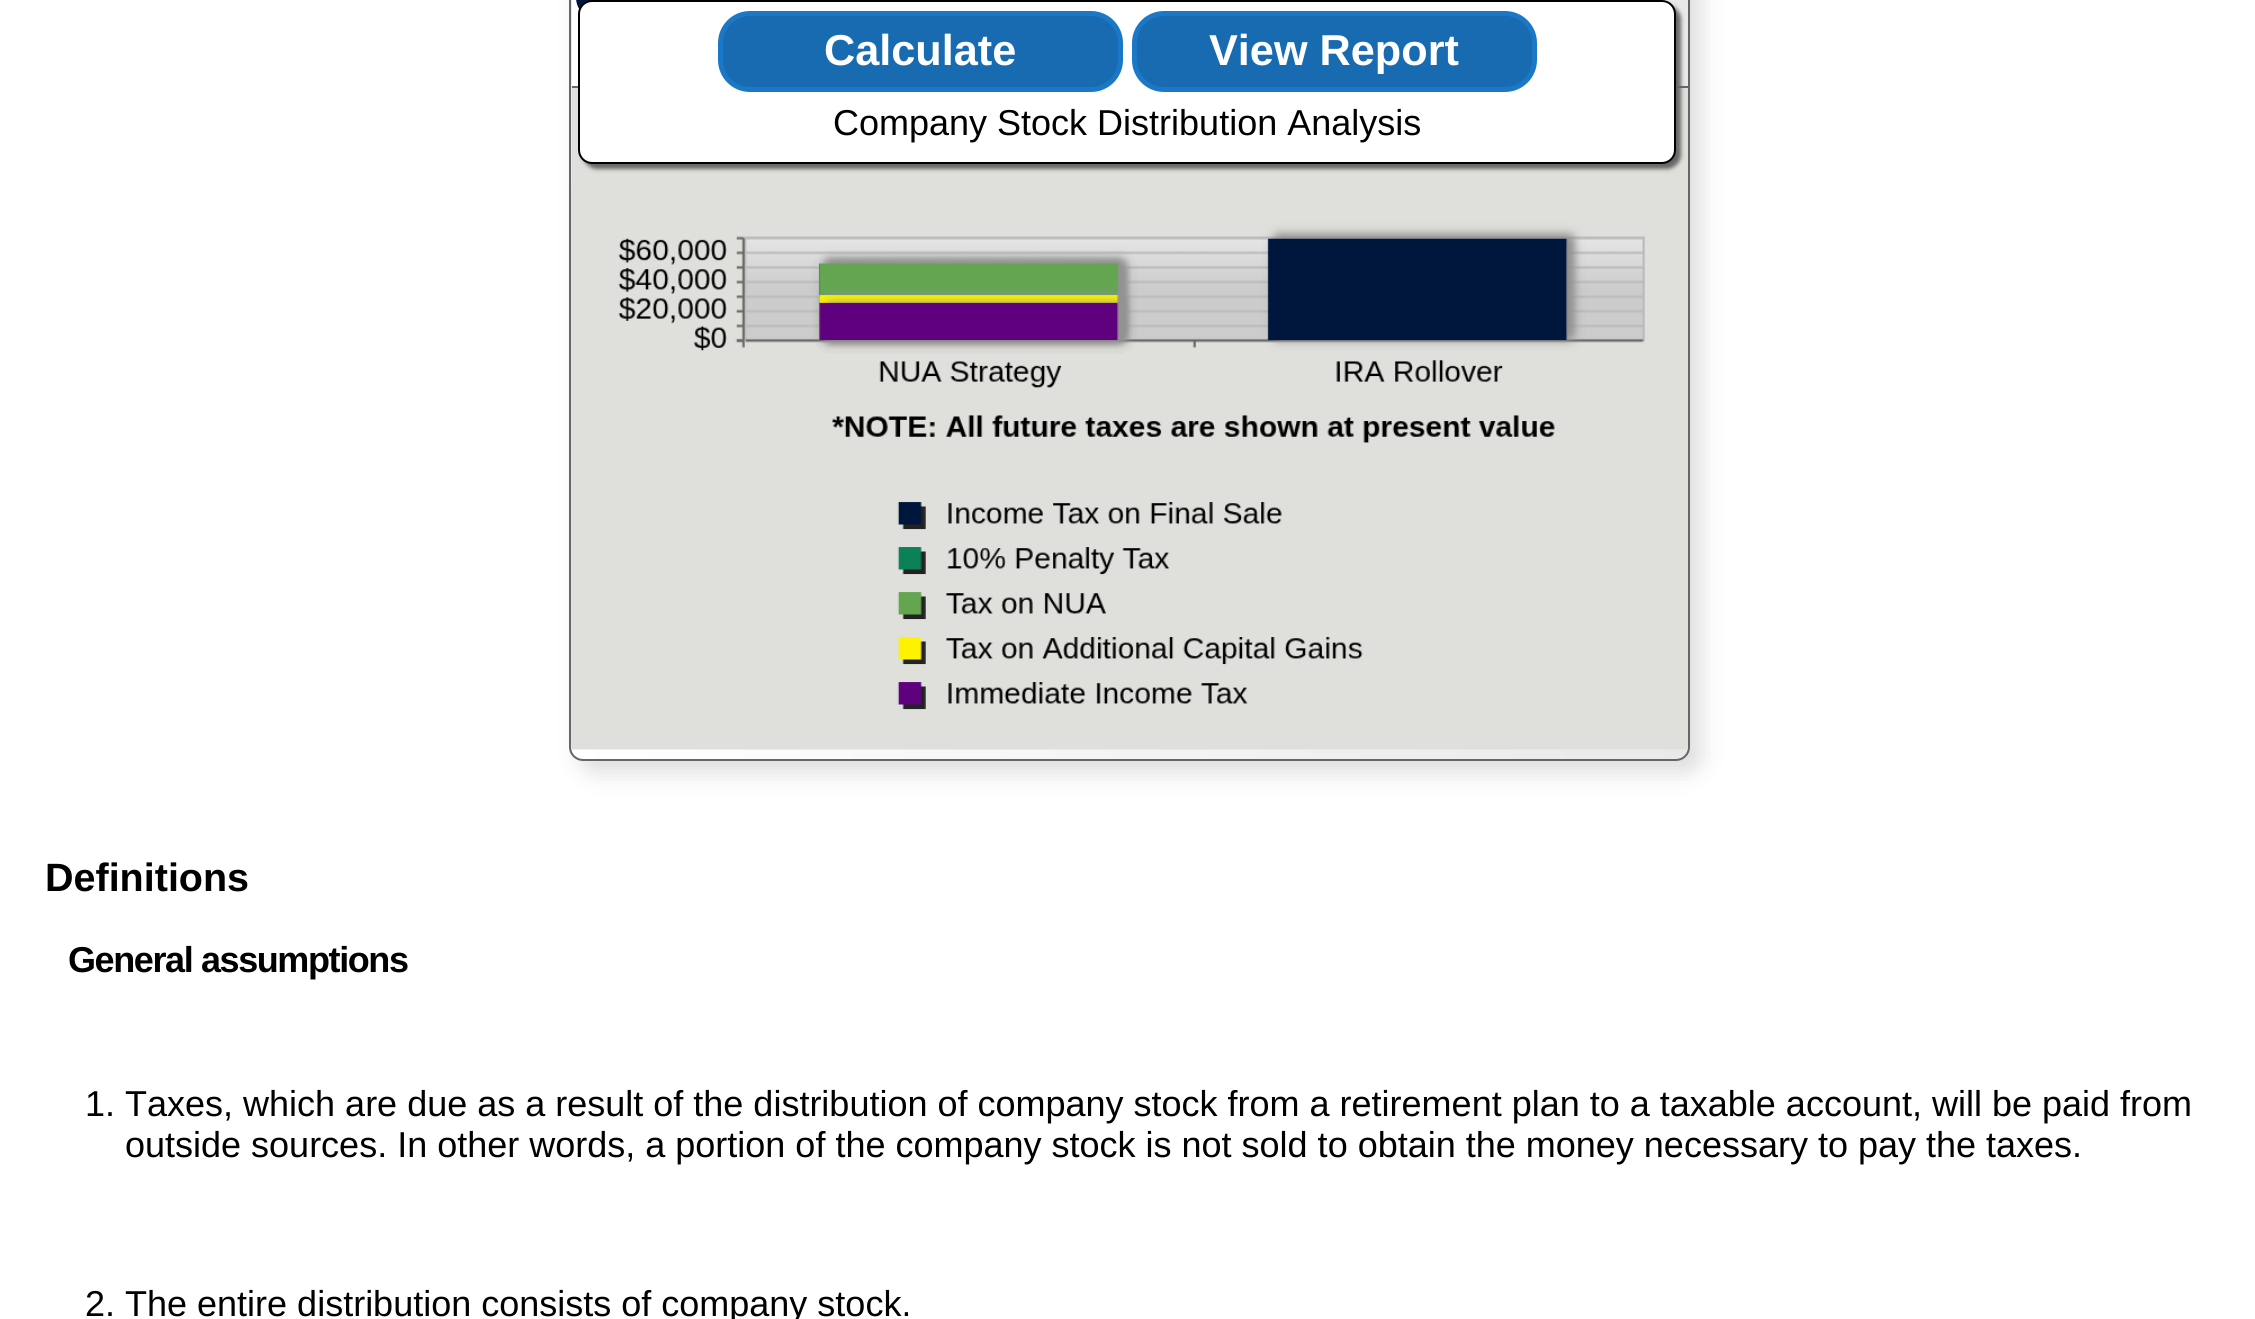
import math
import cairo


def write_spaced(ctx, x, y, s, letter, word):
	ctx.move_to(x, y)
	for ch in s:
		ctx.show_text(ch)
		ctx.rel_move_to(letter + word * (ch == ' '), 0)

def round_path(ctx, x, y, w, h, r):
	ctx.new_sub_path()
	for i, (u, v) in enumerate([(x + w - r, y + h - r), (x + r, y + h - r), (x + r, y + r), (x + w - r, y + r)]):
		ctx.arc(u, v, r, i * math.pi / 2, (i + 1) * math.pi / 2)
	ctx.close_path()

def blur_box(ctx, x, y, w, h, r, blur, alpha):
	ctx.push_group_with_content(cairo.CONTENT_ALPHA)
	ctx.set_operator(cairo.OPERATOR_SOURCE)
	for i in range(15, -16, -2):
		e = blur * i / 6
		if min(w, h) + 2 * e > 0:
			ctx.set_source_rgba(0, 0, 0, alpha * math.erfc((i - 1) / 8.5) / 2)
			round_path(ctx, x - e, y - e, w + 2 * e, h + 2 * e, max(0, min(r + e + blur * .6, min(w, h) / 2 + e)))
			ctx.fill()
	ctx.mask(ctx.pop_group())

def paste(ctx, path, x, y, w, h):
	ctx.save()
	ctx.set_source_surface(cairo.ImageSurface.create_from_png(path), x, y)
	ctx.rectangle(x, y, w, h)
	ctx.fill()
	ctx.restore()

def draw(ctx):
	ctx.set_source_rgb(1, 1, 1)
	ctx.paint()
	ctx.set_source_rgb(0.867, 0.867, 0.867)
	blur_box(ctx, 581, -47, 1120, 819, 14, 11, 1)
	ctx.save()
	round_path(ctx, 569, -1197, 1121, 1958, 14)
	ctx.clip()
	gradient = cairo.LinearGradient(-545, -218, 572, -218)
	gradient.add_color_stop_rgba(0, 1, 1, 1, 1)
	gradient.add_color_stop_rgba(1, 0.914, 0.914, 0.914, 1)
	ctx.set_source(gradient)
	ctx.rectangle(569, 0, 3, 761)
	ctx.fill()
	gradient = cairo.LinearGradient(571, -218, 1688, -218)
	gradient.add_color_stop_rgba(0, 1, 1, 1, 1)
	gradient.add_color_stop_rgba(1, 0.914, 0.914, 0.914, 1)
	ctx.set_source(gradient)
	ctx.rectangle(572, 0, 1116, 761)
	ctx.fill()
	ctx.restore()
	round_path(ctx, 570, -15, 1119, 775, 13)
	ctx.set_source_rgb(0.4, 0.4, 0.4)
	ctx.stroke()
	ctx.set_source_rgb(0, 0.09, 0.239)
	round_path(ctx, 576, -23, 45, 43, 22.5)
	ctx.fill()
	ctx.set_source_rgb(0.875, 0.878, 0.859)
	ctx.rectangle(572, 88, 1116, 661)
	ctx.fill()
	ctx.set_source_rgb(0.4, 0.4, 0.4)
	ctx.rectangle(572, 86, 1116, 2)
	ctx.fill()
	paste(ctx, 'media/1.png', 571, 187, 1117, 563)
	ctx.set_source_rgb(0.4, 0.4, 0.4)
	blur_box(ctx, 583, 5, 1098, 164, 14, 2, 1)
	ctx.set_source_rgb(1, 1, 1)
	round_path(ctx, 579, 1, 1096, 162, 13)
	ctx.fill_preserve()
	ctx.set_source_rgb(0, 0, 0)
	ctx.stroke()
	ctx.set_source_rgb(0.094, 0.42, 0.694)
	round_path(ctx, 720.5, 13.5, 400, 76, 29.5)
	ctx.fill_preserve()
	ctx.set_source_rgb(0.106, 0.471, 0.78)
	ctx.set_line_width(5)
	ctx.stroke()
	ctx.select_font_face('Liberation Sans', cairo.FONT_SLANT_NORMAL, cairo.FONT_WEIGHT_BOLD)
	ctx.set_font_size(43.25)
	ctx.set_source_rgb(1, 1, 1)
	ctx.move_to(824, 65)
	ctx.show_text('Calculate')
	ctx.set_source_rgb(0.094, 0.42, 0.694)
	round_path(ctx, 1134.5, 13.5, 400, 76, 29.5)
	ctx.fill_preserve()
	ctx.set_source_rgb(0.106, 0.471, 0.78)
	ctx.stroke()
	ctx.set_source_rgb(1, 1, 1)
	ctx.move_to(1209, 65)
	ctx.show_text('View Report')
	ctx.select_font_face('Liberation Sans')
	ctx.set_font_size(36)
	ctx.set_source_rgb(0, 0, 0)
	ctx.move_to(833, 135)
	ctx.show_text('Company Stock Distribution Analysis')
	ctx.select_font_face('Liberation Sans', cairo.FONT_SLANT_NORMAL, cairo.FONT_WEIGHT_BOLD)
	ctx.set_font_size(39.5)
	ctx.move_to(45, 891)
	ctx.show_text('Definitions')
	ctx.set_font_size(36)
	write_spaced(ctx, 68, 972, 'General assumptions', -1.4, 0)
	ctx.select_font_face('Liberation Sans')
	for x, y, s in [
		(85, 1116, '1. Taxes, which are due as a result of the distribution of company stock from a retirement plan to a taxable account, will be paid from'),
		(125, 1157, 'outside sources. In other words, a portion of the company stock is not sold to obtain the money necessary to pay the taxes.'),
		(85, 1316, '2. The entire distribution consists of company stock.'),
	]:
		ctx.move_to(x, y)
		ctx.show_text(s)


surface = cairo.ImageSurface(cairo.FORMAT_RGB24, 2255, 1319)
ctx = cairo.Context(surface)
options = cairo.FontOptions()
options.set_hint_metrics(cairo.HINT_METRICS_OFF)
options.set_hint_style(cairo.HINT_STYLE_NONE)
ctx.set_font_options(options)
ctx.set_miter_limit(4)
draw(ctx)
surface.write_to_png('image.png')
